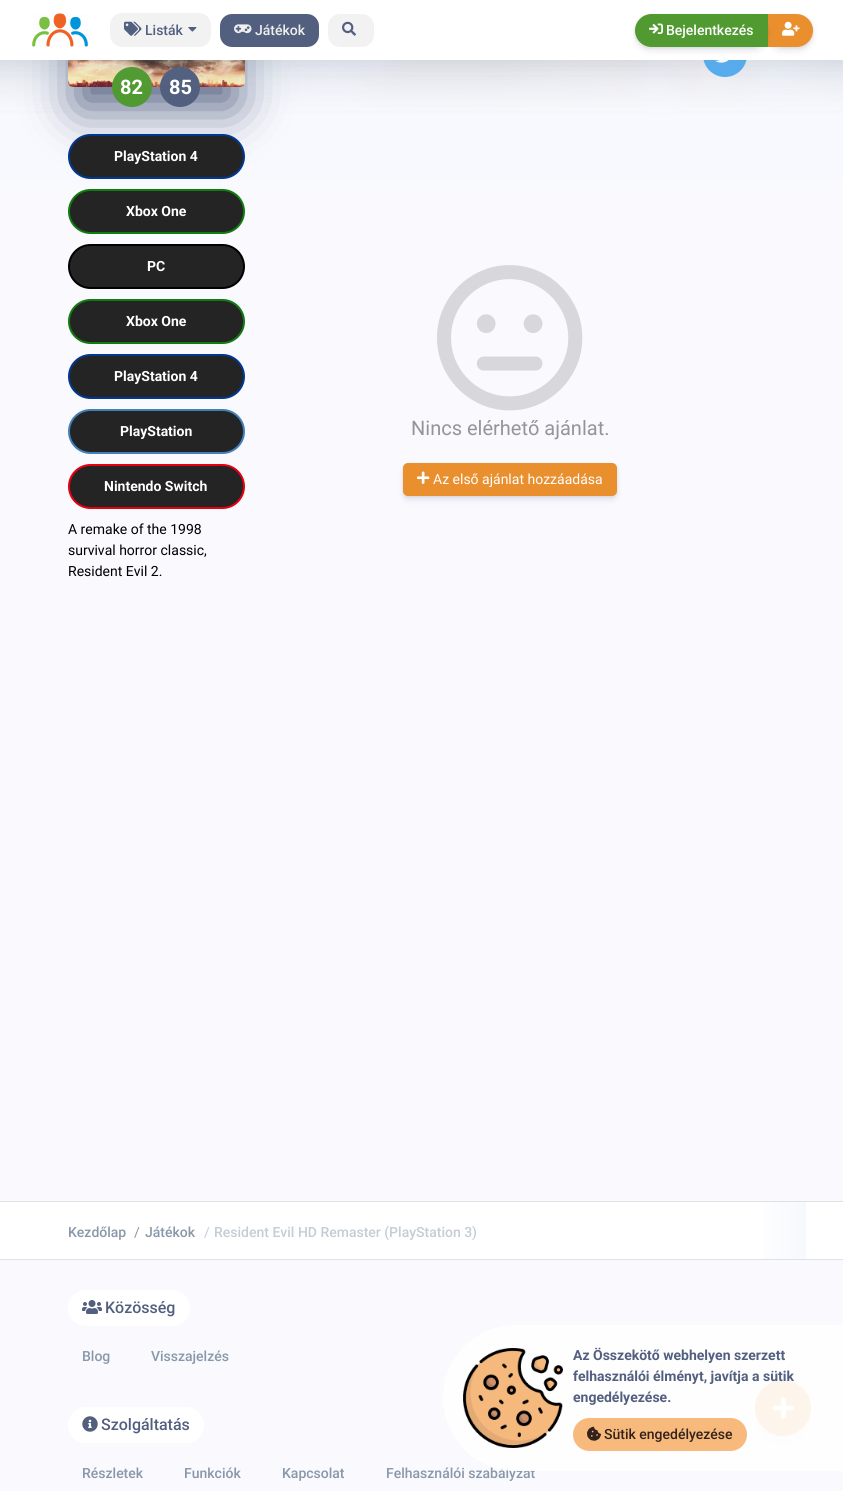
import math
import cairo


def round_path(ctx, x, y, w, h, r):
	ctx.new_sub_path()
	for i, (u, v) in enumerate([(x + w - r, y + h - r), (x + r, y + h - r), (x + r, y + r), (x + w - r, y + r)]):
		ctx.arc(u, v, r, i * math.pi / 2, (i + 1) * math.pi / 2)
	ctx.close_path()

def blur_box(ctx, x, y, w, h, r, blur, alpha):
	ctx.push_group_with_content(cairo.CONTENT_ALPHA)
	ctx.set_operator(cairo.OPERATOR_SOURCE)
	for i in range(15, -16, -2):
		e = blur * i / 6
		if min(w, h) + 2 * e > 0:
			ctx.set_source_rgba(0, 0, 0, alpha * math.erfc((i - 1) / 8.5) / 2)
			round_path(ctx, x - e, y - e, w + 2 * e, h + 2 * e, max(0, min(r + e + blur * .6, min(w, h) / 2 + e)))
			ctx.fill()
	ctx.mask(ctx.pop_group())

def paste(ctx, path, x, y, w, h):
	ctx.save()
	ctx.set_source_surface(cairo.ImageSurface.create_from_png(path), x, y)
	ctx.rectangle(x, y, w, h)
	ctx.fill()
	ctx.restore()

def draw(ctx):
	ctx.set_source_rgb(0.973, 0.976, 0.996)
	ctx.paint()
	paste(ctx, 'media/8.png', 0, 60, 843, 122)
	gradient = cairo.LinearGradient(422, 333, 422, 33)
	gradient.add_color_stop_rgba(0, 0.973, 0.976, 0.996, 1)
	gradient.add_color_stop_rgba(0.5, 0.973, 0.976, 0.996, 1)
	gradient.add_color_stop_rgba(1, 0.973, 0.976, 0.996, 0.33)
	ctx.set_source(gradient)
	ctx.rectangle(0, 60, 843, 51)
	ctx.fill()
	ctx.set_source_rgb(0.341, 0.392, 0.514)
	blur_box(ctx, 78, -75, 157, 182, 0, 25, 1)
	paste(ctx, 'media/9.png', 68, 60, 177, 27)
	ctx.set_source_rgb(0.318, 0.604, 0.192)
	ctx.arc(132, 87, 20, 0, 2 * math.pi)
	ctx.fill()
	ctx.set_source_rgb(0.322, 0.373, 0.498)
	ctx.arc(180, 87, 20, 0, 2 * math.pi)
	ctx.fill()
	ctx.set_source_rgb(0.333, 0.675, 0.933)
	ctx.arc(725, 55, 22, 0, 2 * math.pi)
	ctx.fill()
	paste(ctx, 'media/10.png', 715, 60, 14, 3)
	ctx.set_source_rgb(0.533, 0.596, 0.667)
	blur_box(ctx, 0, 0, 843, 60, 0, 14, 0.15)
	ctx.set_source_rgb(1, 1, 1)
	ctx.rectangle(0, 0, 843, 60)
	ctx.fill()
	paste(ctx, 'media/1.png', 32, 13, 56, 34)
	ctx.set_source_rgb(0.949, 0.949, 0.949)
	round_path(ctx, 110, 13, 101, 34, 12)
	ctx.fill()
	paste(ctx, 'media/2.png', 124, 21, 18, 15)
	ctx.select_font_face('Roboto Medium')
	ctx.set_font_size(14)
	ctx.set_source_rgb(0.322, 0.373, 0.498)
	ctx.move_to(145, 35)
	ctx.show_text('Listák')
	paste(ctx, 'media/3.png', 188, 27, 9, 5)
	round_path(ctx, 220, 14, 99, 33, 12)
	ctx.fill()
	paste(ctx, 'media/4.png', 234, 24, 18, 10)
	ctx.set_source_rgb(0.937, 0.937, 0.937)
	ctx.move_to(255, 35)
	ctx.show_text('Játékok')
	ctx.set_source_rgb(0.949, 0.949, 0.949)
	round_path(ctx, 328, 14, 46, 33, 12)
	ctx.fill()
	paste(ctx, 'media/5.png', 342, 21, 14, 15)
	ctx.set_source_rgb(0, 0, 0)
	blur_box(ctx, 768, 15, 45, 33, 16.5, 1.5, 0.08)
	ctx.set_source_rgb(0.196, 0.196, 0.365)
	blur_box(ctx, 768, 18, 45, 33, 16.5, 3, 0.11)
	ctx.set_source_rgb(0.914, 0.561, 0.18)
	ctx.new_path()
	ctx.move_to(768, 14)
	ctx.line_to(796.5, 14)
	ctx.curve_to(805.5, 14, 813, 21.5, 813, 30.5)
	ctx.curve_to(813, 39.5, 805.5, 47, 796.5, 47)
	ctx.line_to(768, 47)
	ctx.close_path()
	ctx.fill()
	ctx.set_source_rgb(0, 0, 0)
	blur_box(ctx, 635, 15, 133, 33, 16.5, 1.5, 0.08)
	ctx.set_source_rgb(0.196, 0.196, 0.365)
	blur_box(ctx, 635, 18, 133, 33, 16.5, 3, 0.11)
	ctx.set_source_rgb(0.318, 0.604, 0.192)
	ctx.new_path()
	ctx.move_to(651.5, 14)
	ctx.line_to(768, 14)
	ctx.line_to(768, 47)
	ctx.line_to(651.5, 47)
	ctx.curve_to(642.5, 47, 635, 39.5, 635, 30.5)
	ctx.curve_to(635, 21.5, 642.5, 14, 651.5, 14)
	ctx.close_path()
	ctx.fill()
	paste(ctx, 'media/6.png', 649, 23, 14, 11)
	ctx.set_source_rgb(1, 1, 1)
	ctx.move_to(666, 35)
	ctx.show_text('Bejelentkezés')
	paste(ctx, 'media/7.png', 782, 21, 18, 15)
	ctx.select_font_face('Roboto', cairo.FONT_SLANT_NORMAL, cairo.FONT_WEIGHT_BOLD)
	ctx.set_font_size(20)
	ctx.move_to(120, 94)
	ctx.show_text('82')
	ctx.move_to(169, 94)
	ctx.show_text('85')
	ctx.set_source_rgb(0.141, 0.141, 0.141)
	round_path(ctx, 69, 135, 175, 43, 21.5)
	ctx.fill_preserve()
	ctx.set_source_rgb(0, 0.216, 0.569)
	ctx.stroke()
	ctx.set_font_size(14)
	ctx.set_source_rgb(1, 1, 1)
	ctx.move_to(114, 161)
	ctx.show_text('PlayStation 4')
	ctx.set_source_rgb(0.141, 0.141, 0.141)
	round_path(ctx, 69, 190, 175, 43, 21.5)
	ctx.fill_preserve()
	ctx.set_source_rgb(0.063, 0.486, 0.063)
	ctx.stroke()
	ctx.set_source_rgb(1, 1, 1)
	ctx.move_to(126, 216)
	ctx.show_text('Xbox One')
	ctx.set_source_rgb(0.141, 0.141, 0.141)
	round_path(ctx, 69, 245, 175, 43, 21.5)
	ctx.fill_preserve()
	ctx.set_source_rgb(0, 0, 0)
	ctx.stroke()
	ctx.set_source_rgb(1, 1, 1)
	ctx.move_to(147, 271)
	ctx.show_text('PC')
	ctx.set_source_rgb(0.141, 0.141, 0.141)
	round_path(ctx, 69, 300, 175, 43, 21.5)
	ctx.fill_preserve()
	ctx.set_source_rgb(0.063, 0.486, 0.063)
	ctx.stroke()
	ctx.set_source_rgb(1, 1, 1)
	ctx.move_to(126, 326)
	ctx.show_text('Xbox One')
	ctx.set_source_rgb(0.141, 0.141, 0.141)
	round_path(ctx, 69, 355, 175, 43, 21.5)
	ctx.fill_preserve()
	ctx.set_source_rgb(0, 0.216, 0.569)
	ctx.stroke()
	ctx.set_source_rgb(1, 1, 1)
	ctx.move_to(114, 381)
	ctx.show_text('PlayStation 4')
	ctx.set_source_rgb(0.141, 0.141, 0.141)
	round_path(ctx, 69, 410, 175, 43, 21.5)
	ctx.fill_preserve()
	ctx.set_source_rgb(0.251, 0.506, 0.737)
	ctx.stroke()
	ctx.set_source_rgb(1, 1, 1)
	ctx.move_to(120, 436)
	ctx.show_text('PlayStation')
	ctx.set_source_rgb(0.141, 0.141, 0.141)
	round_path(ctx, 69, 465, 175, 43, 21.5)
	ctx.fill_preserve()
	ctx.set_source_rgb(0.902, 0, 0.071)
	ctx.stroke()
	ctx.set_source_rgb(1, 1, 1)
	ctx.move_to(104, 491)
	ctx.show_text('Nintendo Switch')
	ctx.select_font_face('Roboto')
	ctx.set_source_rgb(0, 0, 0)
	for x, y, s in [
		(68, 534, 'A remake of the 1998'),
		(68, 555, 'survival horror classic,'),
		(68, 576, 'Resident Evil 2.'),
	]:
		ctx.move_to(x, y)
		ctx.show_text(s)
	paste(ctx, 'media/11.png', 437, 265, 146, 146)
	ctx.set_font_size(20)
	ctx.set_source_rgb(0.584, 0.584, 0.596)
	ctx.move_to(411, 435)
	ctx.show_text('Nincs elérhető ajánlat.')
	ctx.set_source_rgb(0, 0, 0)
	blur_box(ctx, 403, 464, 214, 33, 5, 1.5, 0.08)
	ctx.set_source_rgb(0.196, 0.196, 0.365)
	blur_box(ctx, 403, 467, 214, 33, 5, 3, 0.11)
	ctx.set_source_rgb(0.914, 0.561, 0.18)
	round_path(ctx, 403, 463, 214, 33, 5)
	ctx.fill()
	paste(ctx, 'media/12.png', 417, 471, 13, 13)
	ctx.set_font_size(14)
	ctx.set_source_rgb(1, 1, 1)
	ctx.move_to(433, 484)
	ctx.show_text('Az első ajánlat hozzáadása')
	ctx.set_source_rgb(0.235, 0.235, 0.235)
	blur_box(ctx, 755, 1390, 56, 56, 28, 5, 0.1)
	ctx.set_source_rgb(0.914, 0.561, 0.18)
	ctx.arc(783, 1408, 28, 0, 2 * math.pi)
	ctx.fill()
	paste(ctx, 'media/13.png', 773, 1397, 21, 22)
	ctx.set_source_rgb(0.871, 0.886, 0.902)
	ctx.rectangle(0, 1201, 843, 1)
	ctx.rectangle(0, 1259, 843, 1)
	ctx.fill()
	ctx.set_source_rgb(1, 1, 1)
	ctx.rectangle(0, 1202, 843, 57)
	ctx.fill()
	ctx.select_font_face('Roboto Medium')
	ctx.set_source_rgb(0.533, 0.596, 0.667)
	ctx.move_to(68, 1237)
	ctx.show_text('Kezdőlap')
	ctx.select_font_face('Roboto')
	ctx.move_to(134, 1237)
	ctx.show_text('/')
	ctx.select_font_face('Roboto Medium')
	ctx.move_to(145, 1237)
	ctx.show_text('Játékok')
	ctx.select_font_face('Roboto')
	ctx.set_source_rgb(0.769, 0.8, 0.835)
	ctx.move_to(204, 1237)
	ctx.show_text('/')
	ctx.select_font_face('Roboto Medium')
	ctx.move_to(214, 1237)
	ctx.show_text('Resident Evil HD Remaster (PlayStation 3)')
	gradient = cairo.LinearGradient(746, 1233, 806, 1233)
	gradient.add_color_stop_rgba(0, 1, 1, 1, 1)
	gradient.add_color_stop_rgba(1, 0.965, 0.976, 0.988, 1)
	ctx.set_source(gradient)
	ctx.rectangle(763, 1202, 43, 57)
	ctx.fill()
	ctx.set_source_rgb(1, 1, 1)
	round_path(ctx, 68, 1290, 122, 36, 18)
	ctx.fill()
	paste(ctx, 'media/14.png', 82, 1300, 20, 14)
	ctx.set_font_size(16)
	ctx.set_source_rgb(0.322, 0.373, 0.498)
	ctx.move_to(105, 1313)
	ctx.show_text('Közösség')
	ctx.set_font_size(14)
	ctx.set_source_rgb(0.533, 0.596, 0.667)
	ctx.move_to(82, 1361)
	ctx.show_text('Blog')
	ctx.move_to(151, 1361)
	ctx.show_text('Visszajelzés')
	ctx.set_source_rgb(1, 1, 1)
	round_path(ctx, 68, 1407, 136, 36, 18)
	ctx.fill()
	paste(ctx, 'media/15.png', 82, 1416, 16, 16)
	ctx.set_font_size(16)
	ctx.set_source_rgb(0.322, 0.373, 0.498)
	ctx.move_to(101, 1430)
	ctx.show_text('Szolgáltatás')
	ctx.set_font_size(14)
	ctx.set_source_rgb(0.533, 0.596, 0.667)
	for x, y, s in [
		(82, 1478, 'Részletek'),
		(184, 1478, 'Funkciók'),
		(282, 1478, 'Kapcsolat'),
		(386, 1478, 'Felhasználói szabályzat'),
	]:
		ctx.move_to(x, y)
		ctx.show_text(s)
	ctx.set_source_rgba(1, 1, 1, 0.9)
	ctx.new_path()
	ctx.move_to(516, 1325)
	ctx.line_to(843, 1325)
	ctx.line_to(843, 1471)
	ctx.line_to(516, 1471)
	ctx.curve_to(475.5, 1471, 443, 1438.5, 443, 1398)
	ctx.curve_to(443, 1357.5, 475.5, 1325, 516, 1325)
	ctx.close_path()
	ctx.fill()
	paste(ctx, 'media/16.png', 463, 1348, 100, 100)
	ctx.select_font_face('Roboto', cairo.FONT_SLANT_NORMAL, cairo.FONT_WEIGHT_BOLD)
	ctx.set_source_rgb(0.322, 0.373, 0.498)
	for x, y, s in [
		(573, 1360, 'Az Összekötő webhelyen szerzett'),
		(573, 1381, 'felhasználói élményt, javítja a sütik'),
		(573, 1402, 'engedélyezése.'),
	]:
		ctx.move_to(x, y)
		ctx.show_text(s)
	ctx.set_source_rgb(0.965, 0.729, 0.486)
	round_path(ctx, 573, 1418, 174, 33, 16.5)
	ctx.fill()
	paste(ctx, 'media/17.png', 587, 1426, 14, 15)
	ctx.select_font_face('Roboto Medium')
	ctx.set_source_rgb(0.196, 0.133, 0.102)
	ctx.move_to(604, 1439)
	ctx.show_text('Sütik engedélyezése')


surface = cairo.ImageSurface(cairo.FORMAT_RGB24, 843, 1491)
ctx = cairo.Context(surface)
options = cairo.FontOptions()
options.set_hint_metrics(cairo.HINT_METRICS_OFF)
options.set_hint_style(cairo.HINT_STYLE_NONE)
ctx.set_font_options(options)
ctx.set_miter_limit(4)
draw(ctx)
surface.write_to_png('image.png')
